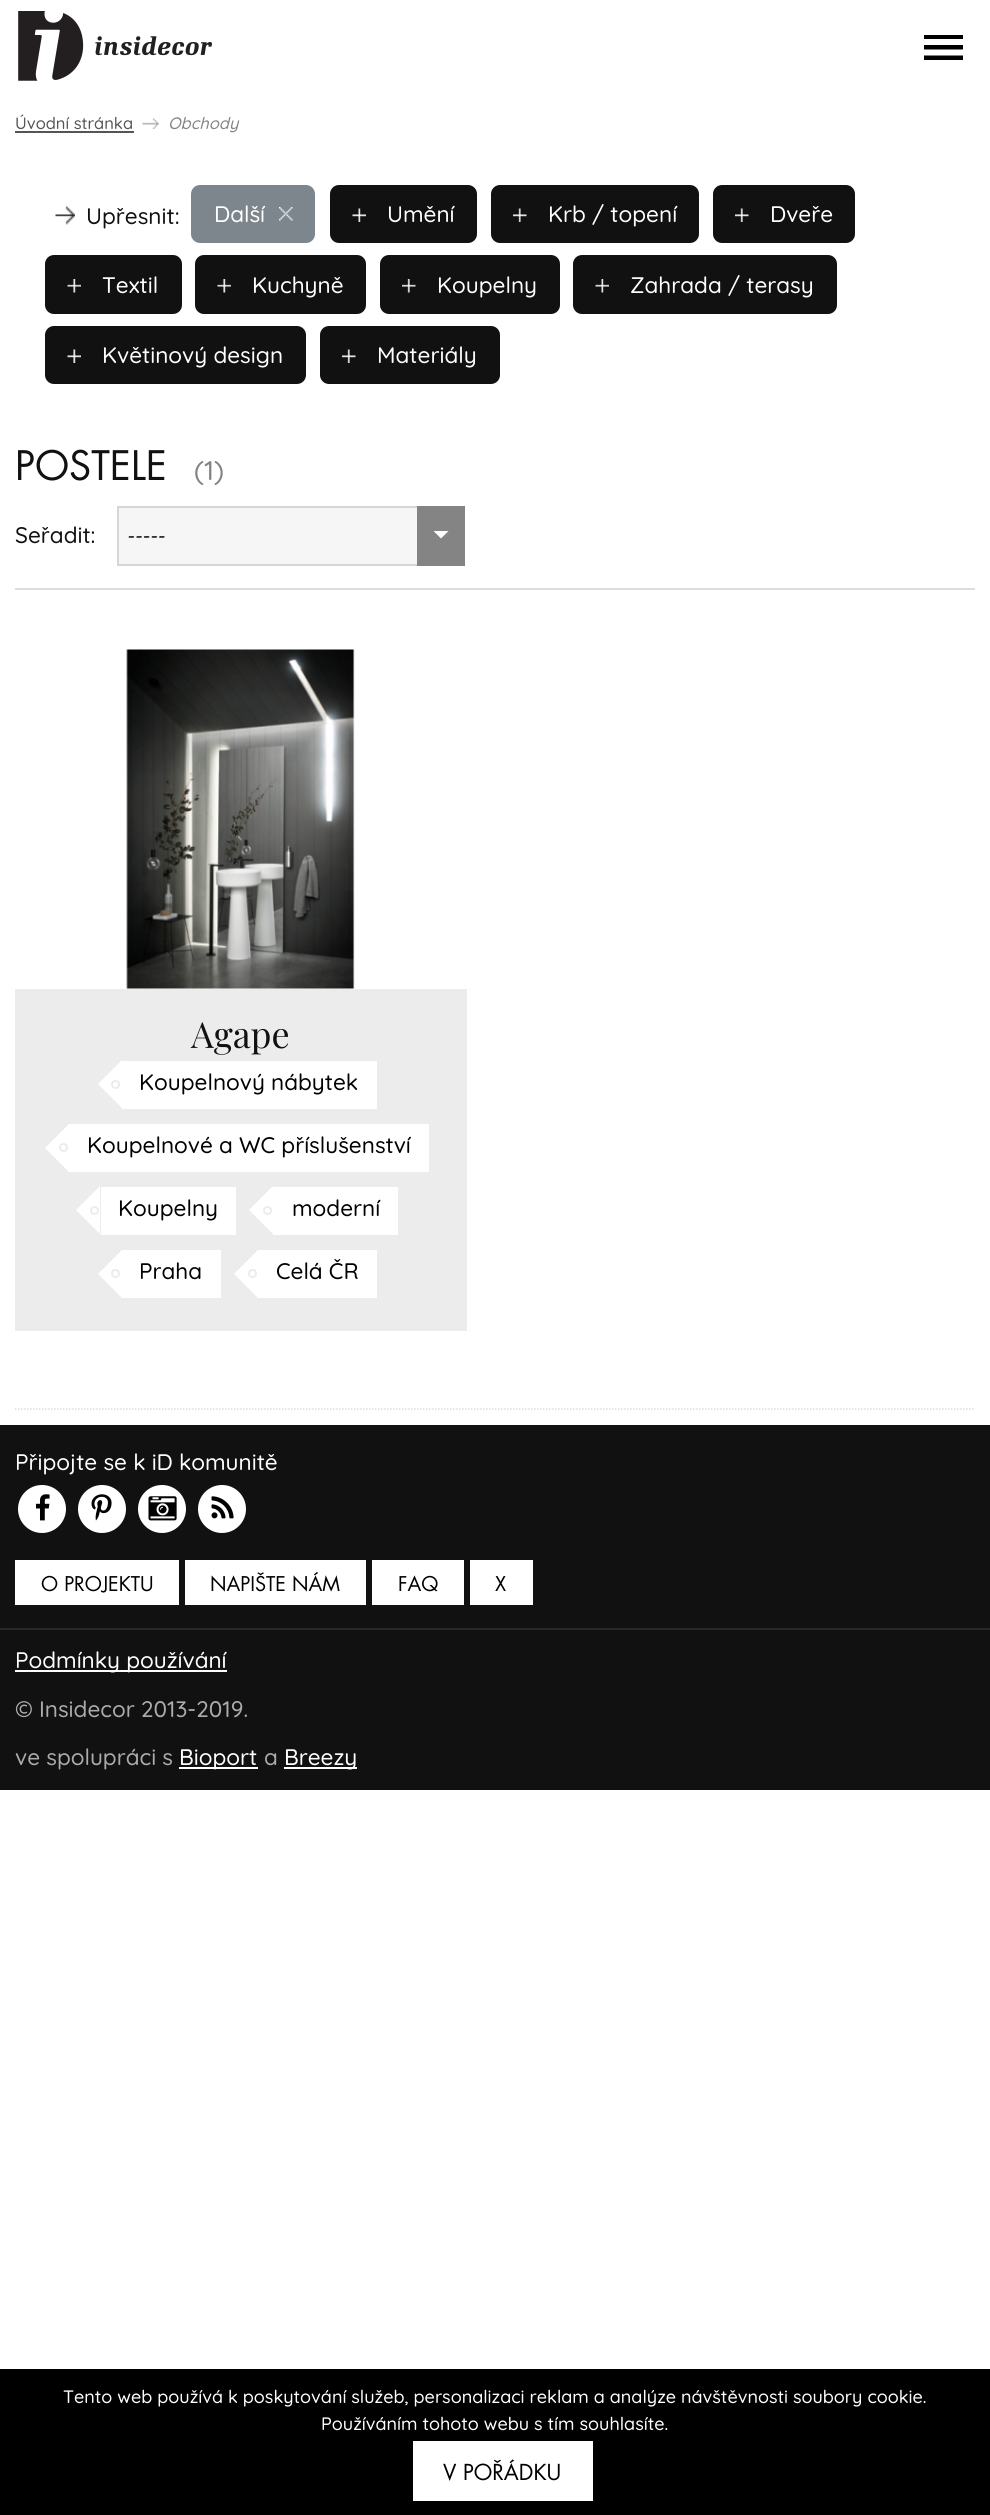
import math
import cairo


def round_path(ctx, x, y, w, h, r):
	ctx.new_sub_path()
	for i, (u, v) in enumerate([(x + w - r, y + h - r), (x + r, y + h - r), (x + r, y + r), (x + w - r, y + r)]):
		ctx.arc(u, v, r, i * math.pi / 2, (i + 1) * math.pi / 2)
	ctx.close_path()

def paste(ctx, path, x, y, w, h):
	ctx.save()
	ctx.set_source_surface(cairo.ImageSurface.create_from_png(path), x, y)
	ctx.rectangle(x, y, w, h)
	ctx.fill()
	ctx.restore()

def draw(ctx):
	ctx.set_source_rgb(1, 1, 1)
	ctx.paint()
	paste(ctx, 'media/1.png', 18, 11, 194, 70)
	ctx.save()
	ctx.rectangle(924, 35, 39, 25)
	ctx.clip()
	ctx.set_source_rgb(0, 0, 0)
	ctx.set_fill_rule(cairo.FILL_RULE_EVEN_ODD)
	ctx.new_path()
	ctx.move_to(924, 60)
	ctx.line_to(924, 55.5)
	ctx.line_to(963, 55.5)
	ctx.line_to(963, 60)
	ctx.close_path()
	ctx.move_to(924, 45)
	ctx.line_to(963, 45)
	ctx.line_to(963, 49.5)
	ctx.line_to(924, 49.5)
	ctx.close_path()
	ctx.move_to(924, 34.5)
	ctx.line_to(963, 34.5)
	ctx.line_to(963, 39)
	ctx.line_to(924, 39)
	ctx.close_path()
	ctx.fill()
	ctx.restore()
	ctx.select_font_face('Quicksand Medium')
	ctx.set_font_size(16.5)
	ctx.set_source_rgb(0.333, 0.333, 0.333)
	ctx.move_to(15, 129)
	ctx.show_text('Úvodní stránka')
	ctx.rectangle(15, 131, 119, 2)
	ctx.fill()
	paste(ctx, 'media/2.png', 142, 118, 17, 11)
	ctx.select_font_face('Quicksand Medium', cairo.FONT_SLANT_ITALIC)
	ctx.set_source_rgb(0.518, 0.518, 0.518)
	ctx.move_to(168, 129)
	ctx.show_text('Obchody')
	paste(ctx, 'media/3.png', 55, 205, 20, 20)
	ctx.select_font_face('Quicksand Medium')
	ctx.set_font_size(22.5)
	ctx.set_source_rgb(0.067, 0.067, 0.067)
	ctx.move_to(86, 224)
	ctx.show_text('Upřesnit:')
	ctx.set_source_rgb(0.49, 0.525, 0.549)
	round_path(ctx, 191, 185, 124, 58, 9)
	ctx.fill()
	ctx.set_source_rgb(1, 1, 1)
	ctx.move_to(214, 222)
	ctx.show_text('Další')
	paste(ctx, 'media/4.png', 279, 207, 14, 14)
	ctx.set_source_rgb(0.067, 0.067, 0.067)
	round_path(ctx, 330, 185, 147, 58, 9)
	ctx.fill()
	paste(ctx, 'media/5.png', 352, 208, 14, 14)
	ctx.set_source_rgb(1, 1, 1)
	ctx.move_to(387, 222)
	ctx.show_text('Umění')
	ctx.set_source_rgb(0.067, 0.067, 0.067)
	round_path(ctx, 491, 185, 208, 58, 9)
	ctx.fill()
	paste(ctx, 'media/6.png', 513, 208, 14, 14)
	ctx.set_source_rgb(1, 1, 1)
	ctx.move_to(548, 222)
	ctx.show_text('Krb / topení')
	ctx.set_source_rgb(0.067, 0.067, 0.067)
	round_path(ctx, 713, 185, 142, 58, 9)
	ctx.fill()
	paste(ctx, 'media/7.png', 735, 208, 14, 14)
	ctx.set_source_rgb(1, 1, 1)
	ctx.move_to(770, 222)
	ctx.show_text('Dveře')
	ctx.set_source_rgb(0.067, 0.067, 0.067)
	round_path(ctx, 45, 255, 137, 59, 9)
	ctx.fill()
	paste(ctx, 'media/8.png', 67, 279, 14, 14)
	ctx.set_source_rgb(1, 1, 1)
	ctx.move_to(102, 293)
	ctx.show_text('Textil')
	ctx.set_source_rgb(0.067, 0.067, 0.067)
	round_path(ctx, 195, 255, 171, 59, 9)
	ctx.fill()
	paste(ctx, 'media/8.png', 217, 279, 14, 14)
	ctx.set_source_rgb(1, 1, 1)
	ctx.move_to(252, 293)
	ctx.show_text('Kuchyně')
	ctx.set_source_rgb(0.067, 0.067, 0.067)
	round_path(ctx, 380, 255, 180, 59, 9)
	ctx.fill()
	paste(ctx, 'media/9.png', 402, 279, 14, 14)
	ctx.set_source_rgb(1, 1, 1)
	ctx.move_to(437, 293)
	ctx.show_text('Koupelny')
	ctx.set_source_rgb(0.067, 0.067, 0.067)
	round_path(ctx, 573, 255, 264, 59, 9)
	ctx.fill()
	paste(ctx, 'media/10.png', 595, 279, 14, 14)
	ctx.set_source_rgb(1, 1, 1)
	ctx.move_to(630, 293)
	ctx.show_text('Zahrada / terasy')
	ctx.set_source_rgb(0.067, 0.067, 0.067)
	round_path(ctx, 45, 326, 261, 58, 9)
	ctx.fill()
	paste(ctx, 'media/11.png', 67, 349, 14, 14)
	ctx.set_source_rgb(1, 1, 1)
	ctx.move_to(102, 363)
	ctx.show_text('Květinový design')
	ctx.set_source_rgb(0.067, 0.067, 0.067)
	round_path(ctx, 320, 326, 180, 58, 9)
	ctx.fill()
	paste(ctx, 'media/7.png', 342, 349, 14, 14)
	ctx.set_source_rgb(1, 1, 1)
	ctx.move_to(377, 363)
	ctx.show_text('Materiály')
	ctx.new_path()
	ctx.move_to(15, 1409)
	ctx.line_to(975, 1409)
	ctx.set_source_rgb(0.867, 0.867, 0.867)
	ctx.set_line_width(1.5)
	ctx.set_dash([1.5, 1.5])
	ctx.stroke()
	ctx.rectangle(15, 588, 960, 2)
	ctx.fill()
	ctx.select_font_face('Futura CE')
	ctx.set_font_size(36)
	ctx.set_source_rgb(0.067, 0.067, 0.067)
	ctx.move_to(15, 480)
	ctx.show_text('POSTELE')
	ctx.select_font_face('Quicksand Medium')
	ctx.set_font_size(27)
	ctx.set_source_rgb(0.518, 0.518, 0.518)
	ctx.move_to(194, 480)
	ctx.show_text('(1)')
	ctx.set_font_size(22.5)
	ctx.set_source_rgb(0.067, 0.067, 0.067)
	ctx.move_to(15, 543)
	ctx.show_text('Seřadit:')
	ctx.set_source_rgb(0.961, 0.961, 0.961)
	ctx.rectangle(119, 508, 298, 56)
	ctx.fill()
	ctx.rectangle(118, 507, 346, 58)
	ctx.set_source_rgb(0.839, 0.839, 0.839)
	ctx.set_line_width(2)
	ctx.set_dash([])
	ctx.stroke()
	ctx.select_font_face('Quicksand Medium', cairo.FONT_SLANT_ITALIC)
	ctx.set_font_size(19.5)
	ctx.set_source_rgb(0.067, 0.067, 0.067)
	ctx.move_to(126, 543)
	ctx.show_text('-----')
	ctx.set_source_rgb(0.518, 0.518, 0.518)
	ctx.rectangle(417, 506, 48, 60)
	ctx.fill()
	ctx.set_source_rgb(1, 1, 1)
	ctx.new_path()
	ctx.move_to(433.5, 531)
	ctx.line_to(448.5, 531)
	ctx.line_to(441, 538.5)
	ctx.close_path()
	ctx.fill()
	paste(ctx, 'media/12.png', 126, 649, 229, 340)
	ctx.set_source_rgb(0.922, 0.922, 0.922)
	ctx.rectangle(15, 989, 452, 342)
	ctx.fill()
	ctx.select_font_face('Playfair Display')
	ctx.set_font_size(36)
	ctx.set_source_rgb(0.067, 0.067, 0.067)
	ctx.move_to(191, 1048)
	ctx.show_text('Agape')
	ctx.set_source_rgb(1, 1, 1)
	ctx.rectangle(122, 1061, 255, 48)
	ctx.fill()
	ctx.new_path()
	ctx.move_to(122, 1060)
	ctx.line_to(122, 1108)
	ctx.line_to(98, 1084)
	ctx.close_path()
	ctx.fill()
	ctx.select_font_face('Quicksand Medium')
	ctx.set_font_size(22.5)
	ctx.set_source_rgb(0, 0, 0)
	ctx.move_to(139, 1090)
	ctx.show_text('Koupelnový nábytek')
	ctx.new_path()
	ctx.arc(115.5, 1084.5, 3.5, 0, 2 * math.pi)
	ctx.set_source_rgb(0.925, 0.925, 0.925)
	ctx.stroke()
	ctx.set_source_rgb(1, 1, 1)
	ctx.rectangle(69, 1124, 360, 48)
	ctx.fill()
	ctx.new_path()
	ctx.move_to(69, 1124)
	ctx.line_to(69, 1172)
	ctx.line_to(45, 1148)
	ctx.close_path()
	ctx.fill()
	ctx.set_source_rgb(0, 0, 0)
	ctx.move_to(87, 1153)
	ctx.show_text('Koupelnové a WC příslušenství')
	ctx.new_path()
	ctx.arc(63.5, 1147.5, 3.5, 0, 2 * math.pi)
	ctx.set_source_rgb(0.925, 0.925, 0.925)
	ctx.stroke()
	ctx.set_source_rgb(1, 1, 1)
	ctx.rectangle(101, 1187, 135, 48)
	ctx.fill()
	ctx.new_path()
	ctx.move_to(100, 1186)
	ctx.line_to(100, 1234)
	ctx.line_to(76, 1210)
	ctx.close_path()
	ctx.fill()
	ctx.set_source_rgb(0, 0, 0)
	ctx.move_to(118, 1216)
	ctx.show_text('Koupelny')
	ctx.new_path()
	ctx.arc(94.5, 1210.5, 3.5, 0, 2 * math.pi)
	ctx.set_source_rgb(0.925, 0.925, 0.925)
	ctx.stroke()
	ctx.set_source_rgb(1, 1, 1)
	ctx.rectangle(273, 1187, 125, 48)
	ctx.fill()
	ctx.new_path()
	ctx.move_to(273, 1186)
	ctx.line_to(273, 1234)
	ctx.line_to(249, 1210)
	ctx.close_path()
	ctx.fill()
	ctx.set_source_rgb(0, 0, 0)
	ctx.move_to(292, 1216)
	ctx.show_text('moderní')
	ctx.new_path()
	ctx.arc(267.5, 1210.5, 3.5, 0, 2 * math.pi)
	ctx.set_source_rgb(0.925, 0.925, 0.925)
	ctx.stroke()
	ctx.set_source_rgb(1, 1, 1)
	ctx.rectangle(122, 1250, 99, 48)
	ctx.fill()
	ctx.new_path()
	ctx.move_to(122, 1250)
	ctx.line_to(122, 1298)
	ctx.line_to(98, 1274)
	ctx.close_path()
	ctx.fill()
	ctx.set_source_rgb(0, 0, 0)
	ctx.move_to(139, 1279)
	ctx.show_text('Praha')
	ctx.new_path()
	ctx.arc(115.5, 1273.5, 3.5, 0, 2 * math.pi)
	ctx.set_source_rgb(0.925, 0.925, 0.925)
	ctx.stroke()
	ctx.set_source_rgb(1, 1, 1)
	ctx.rectangle(258, 1250, 119, 48)
	ctx.fill()
	ctx.new_path()
	ctx.move_to(258, 1250)
	ctx.line_to(258, 1298)
	ctx.line_to(234, 1274)
	ctx.close_path()
	ctx.fill()
	ctx.set_source_rgb(0, 0, 0)
	ctx.move_to(276, 1279)
	ctx.show_text('Celá ČR')
	ctx.new_path()
	ctx.arc(252.5, 1273.5, 3.5, 0, 2 * math.pi)
	ctx.set_source_rgb(0.925, 0.925, 0.925)
	ctx.stroke()
	ctx.set_source_rgb(0.067, 0.067, 0.067)
	ctx.rectangle(0, 1425, 990, 365)
	ctx.fill()
	ctx.set_source_rgb(1, 1, 1)
	ctx.move_to(15, 1470)
	ctx.show_text('Připojte se k iD komunitě')
	ctx.new_path()
	ctx.arc(42, 1509, 24, 0, 2 * math.pi)
	ctx.fill()
	paste(ctx, 'media/13.png', 36, 1494, 14, 27)
	ctx.arc(102, 1509, 24, 0, 2 * math.pi)
	ctx.fill()
	paste(ctx, 'media/14.png', 91, 1494, 21, 27)
	ctx.arc(162, 1509, 24, 0, 2 * math.pi)
	ctx.fill()
	paste(ctx, 'media/15.png', 148, 1496, 29, 25)
	ctx.arc(222, 1509, 24, 0, 2 * math.pi)
	ctx.fill()
	paste(ctx, 'media/16.png', 211, 1496, 23, 23)
	ctx.rectangle(15, 1560, 164, 45)
	ctx.fill()
	ctx.select_font_face('Futura CE')
	ctx.set_font_size(18)
	ctx.set_source_rgb(0, 0, 0)
	ctx.move_to(41, 1591)
	ctx.show_text('O PROJEKTU')
	ctx.set_source_rgb(1, 1, 1)
	ctx.rectangle(185, 1560, 181, 45)
	ctx.fill()
	ctx.set_source_rgb(0, 0, 0)
	ctx.move_to(210, 1591)
	ctx.show_text('NAPIŠTE NÁM')
	ctx.set_source_rgb(1, 1, 1)
	ctx.rectangle(372, 1560, 92, 45)
	ctx.fill()
	ctx.set_source_rgb(0, 0, 0)
	ctx.move_to(398, 1591)
	ctx.show_text('FAQ')
	ctx.set_source_rgb(1, 1, 1)
	ctx.rectangle(470, 1560, 63, 45)
	ctx.fill()
	ctx.set_source_rgb(0, 0, 0)
	ctx.move_to(495, 1591)
	ctx.show_text('X')
	ctx.set_source_rgb(0.157, 0.157, 0.157)
	ctx.rectangle(0, 1628, 990, 2)
	ctx.fill()
	ctx.set_source_rgb(1, 1, 1)
	ctx.rectangle(15, 1670, 212, 2)
	ctx.fill()
	ctx.select_font_face('Quicksand Medium')
	ctx.set_font_size(22.5)
	ctx.move_to(15, 1668)
	ctx.show_text('Podmínky používání')
	ctx.set_source_rgb(0.671, 0.671, 0.671)
	ctx.move_to(15, 1717)
	ctx.show_text('© Insidecor 2013-2019.')
	ctx.move_to(15, 1765)
	ctx.show_text('ve spolupráci s')
	ctx.set_source_rgb(1, 1, 1)
	ctx.rectangle(179, 1767, 79, 2)
	ctx.fill()
	ctx.move_to(179, 1765)
	ctx.show_text('Bioport')
	ctx.set_source_rgb(0.671, 0.671, 0.671)
	ctx.move_to(264, 1765)
	ctx.show_text('a')
	ctx.set_source_rgb(1, 1, 1)
	ctx.rectangle(284, 1767, 73, 2)
	ctx.fill()
	ctx.move_to(284, 1765)
	ctx.show_text('Breezy')
	ctx.set_source_rgb(0, 0, 0)
	ctx.rectangle(0, 2369, 990, 146)
	ctx.fill()
	ctx.set_font_size(18)
	ctx.set_source_rgb(1, 1, 1)
	ctx.move_to(63, 2403)
	ctx.show_text('Tento web používá k poskytování služeb, personalizaci reklam a analýze návštěvnosti soubory cookie.')
	ctx.move_to(321, 2430)
	ctx.show_text('Používáním tohoto webu s tím souhlasíte.')
	ctx.rectangle(413, 2441, 180, 60)
	ctx.fill()
	ctx.select_font_face('Futura CE')
	ctx.set_font_size(19.5)
	ctx.set_source_rgb(0, 0, 0)
	ctx.move_to(443, 2480)
	ctx.show_text('V POŘÁDKU')


surface = cairo.ImageSurface(cairo.FORMAT_RGB24, 990, 2515)
ctx = cairo.Context(surface)
options = cairo.FontOptions()
options.set_hint_metrics(cairo.HINT_METRICS_OFF)
options.set_hint_style(cairo.HINT_STYLE_NONE)
ctx.set_font_options(options)
ctx.set_miter_limit(4)
draw(ctx)
surface.write_to_png('image.png')
